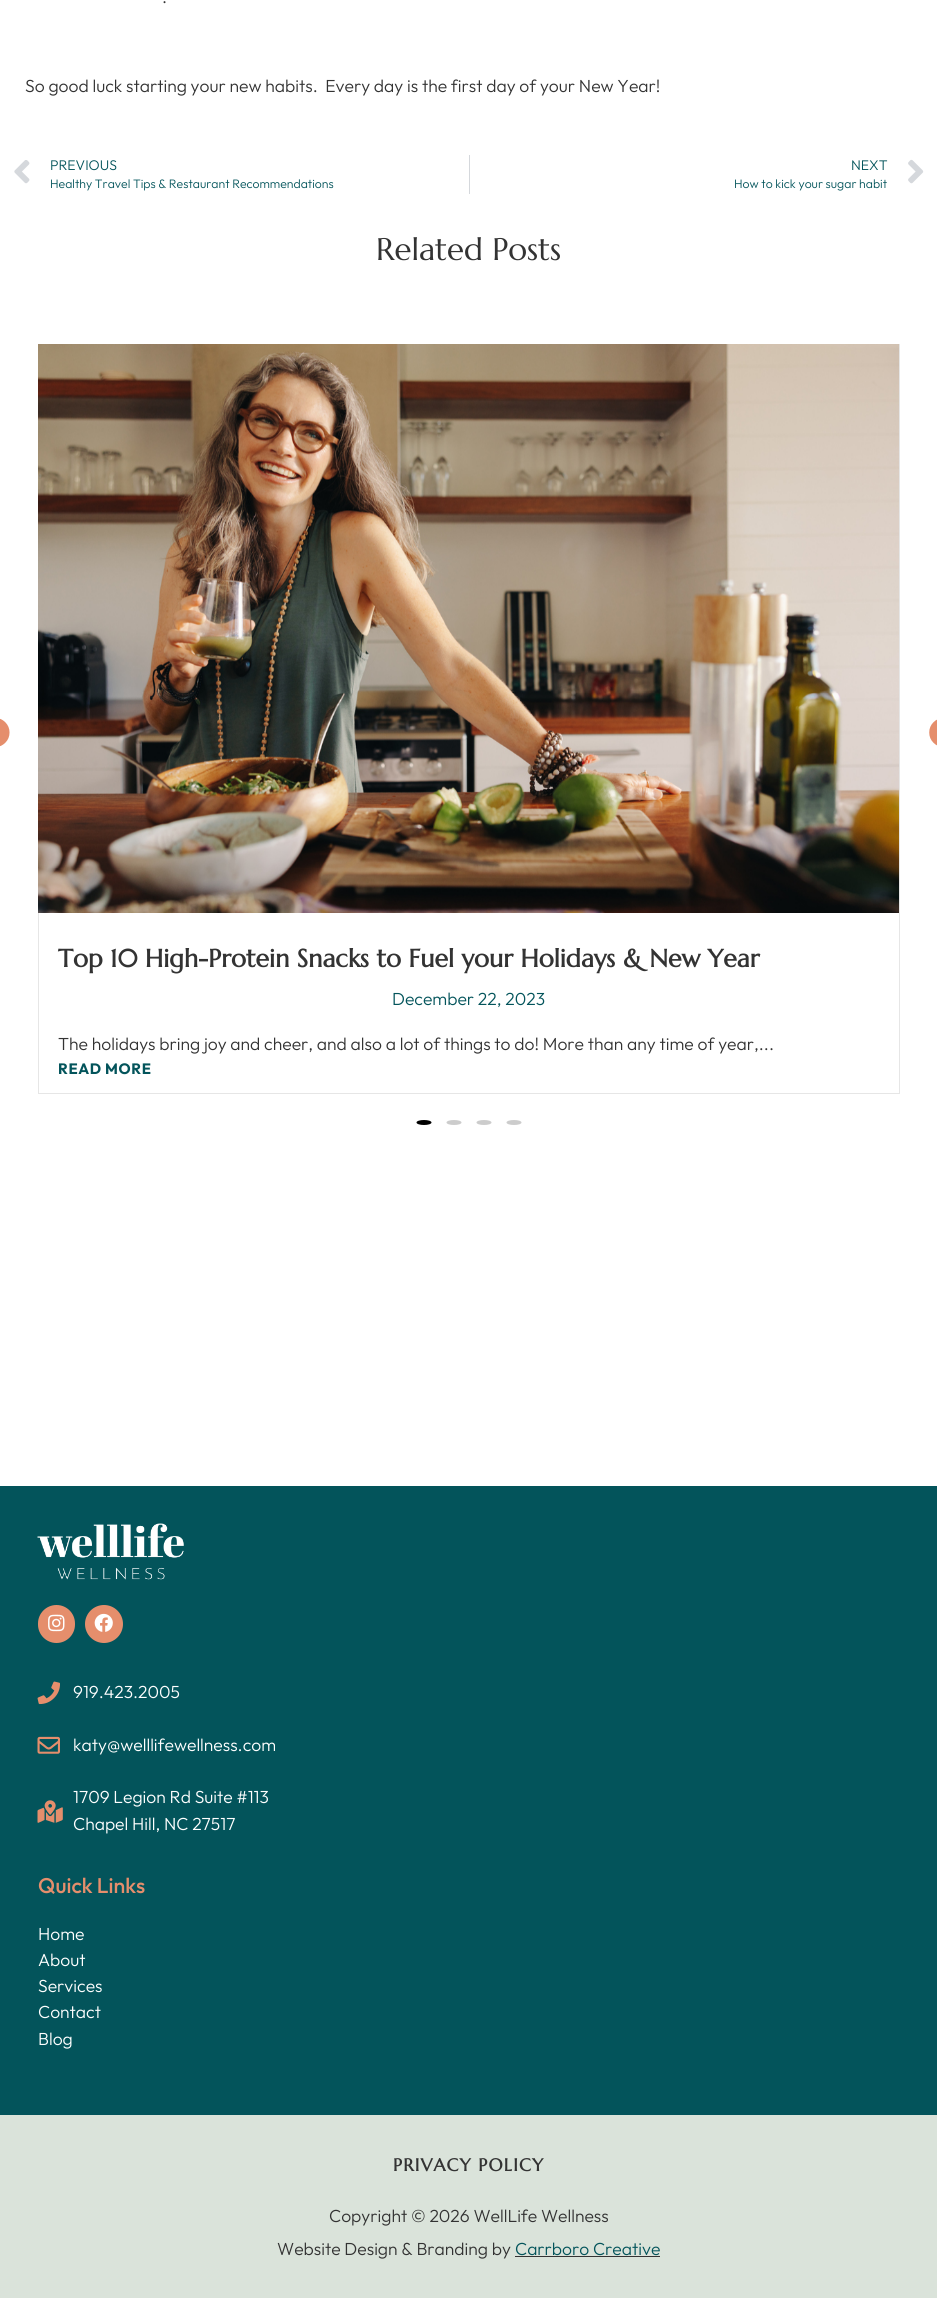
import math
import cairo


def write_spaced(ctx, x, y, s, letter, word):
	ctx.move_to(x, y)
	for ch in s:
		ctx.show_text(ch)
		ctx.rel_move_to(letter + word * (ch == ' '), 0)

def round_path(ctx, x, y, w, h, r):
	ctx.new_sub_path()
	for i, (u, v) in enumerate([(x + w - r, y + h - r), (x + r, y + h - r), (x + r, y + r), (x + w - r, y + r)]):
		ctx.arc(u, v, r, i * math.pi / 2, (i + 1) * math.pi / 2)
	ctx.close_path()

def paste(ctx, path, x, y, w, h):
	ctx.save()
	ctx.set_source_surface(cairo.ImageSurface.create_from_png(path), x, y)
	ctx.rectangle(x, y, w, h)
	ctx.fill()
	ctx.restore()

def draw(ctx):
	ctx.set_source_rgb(1, 1, 1)
	ctx.paint()
	ctx.select_font_face('Outfit Light')
	ctx.set_font_size(17.5)
	ctx.set_source_rgb(0.2, 0.2, 0.2)
	ctx.move_to(162, 3)
	ctx.show_text('.')
	ctx.move_to(25, 92)
	ctx.show_text('So good luck starting your new habits.  Every day is the first day of your New Year!')
	paste(ctx, 'media/1.png', 14, 160, 16, 24)
	ctx.set_font_size(14)
	ctx.set_source_rgb(0.012, 0.329, 0.357)
	ctx.move_to(50, 170)
	ctx.show_text('PREVIOUS')
	ctx.set_font_size(12.25)
	ctx.move_to(50, 188)
	ctx.show_text('Healthy Travel Tips & Restaurant Recommendations')
	ctx.set_source_rgb(0.835, 0.847, 0.863)
	ctx.rectangle(469, 155, 1, 39)
	ctx.fill()
	ctx.set_font_size(14)
	ctx.set_source_rgb(0.012, 0.329, 0.357)
	ctx.move_to(851, 170)
	ctx.show_text('NEXT')
	ctx.set_font_size(12.25)
	ctx.move_to(734, 188)
	ctx.show_text('How to kick your sugar habit')
	paste(ctx, 'media/2.png', 908, 159, 16, 25)
	ctx.select_font_face('Marcellus')
	ctx.set_font_size(31.25)
	ctx.set_source_rgb(0.2, 0.2, 0.2)
	ctx.move_to(376, 260)
	ctx.show_text('Related Posts')
	paste(ctx, 'media/3.png', 0, 718, 10, 29)
	paste(ctx, 'media/4.png', 929, 719, 8, 27)
	ctx.rectangle(38.5, 344.5, 861, 749)
	ctx.set_source_rgb(0.902, 0.902, 0.902)
	ctx.set_line_width(1)
	ctx.stroke()
	paste(ctx, 'media/5.png', 38, 344, 861, 569)
	ctx.select_font_face('Marcellus', cairo.FONT_SLANT_NORMAL, cairo.FONT_WEIGHT_BOLD)
	ctx.set_font_size(25)
	ctx.set_source_rgb(0.2, 0.2, 0.2)
	ctx.move_to(58, 967)
	ctx.show_text('Top 10 High-Protein Snacks to Fuel your Holidays & New Year')
	ctx.select_font_face('Outfit Light')
	ctx.set_font_size(17.5)
	ctx.set_source_rgb(0.012, 0.329, 0.357)
	ctx.move_to(392, 1005)
	ctx.show_text('December 22, 2023')
	ctx.set_source_rgb(0.2, 0.2, 0.2)
	ctx.move_to(58, 1050)
	ctx.show_text('The holidays bring joy and cheer, and also a lot of things to do! More than any time of year,...')
	ctx.select_font_face('Outfit', cairo.FONT_SLANT_NORMAL, cairo.FONT_WEIGHT_BOLD)
	ctx.set_font_size(15)
	ctx.set_source_rgb(0.012, 0.329, 0.357)
	write_spaced(ctx, 58, 1074, 'READ MORE', 0.6, 0)
	ctx.set_source_rgb(0, 0, 0)
	ctx.new_path()
	ctx.move_to(424, 1120)
	ctx.curve_to(428, 1120, 431.5, 1121, 431.5, 1122.5)
	ctx.curve_to(431.5, 1124, 428, 1125, 424, 1125)
	ctx.curve_to(420, 1125, 416.5, 1124, 416.5, 1122.5)
	ctx.curve_to(416.5, 1121, 420, 1120, 424, 1120)
	ctx.close_path()
	ctx.fill()
	ctx.set_source_rgb(0.8, 0.8, 0.8)
	ctx.new_path()
	ctx.move_to(454, 1120)
	ctx.curve_to(458, 1120, 461.5, 1121, 461.5, 1122.5)
	ctx.curve_to(461.5, 1124, 458, 1125, 454, 1125)
	ctx.curve_to(450, 1125, 446.5, 1124, 446.5, 1122.5)
	ctx.curve_to(446.5, 1121, 450, 1120, 454, 1120)
	ctx.close_path()
	ctx.fill()
	ctx.new_path()
	ctx.move_to(484, 1120)
	ctx.curve_to(488, 1120, 491.5, 1121, 491.5, 1122.5)
	ctx.curve_to(491.5, 1124, 488, 1125, 484, 1125)
	ctx.curve_to(480, 1125, 476.5, 1124, 476.5, 1122.5)
	ctx.curve_to(476.5, 1121, 480, 1120, 484, 1120)
	ctx.close_path()
	ctx.fill()
	ctx.new_path()
	ctx.move_to(514, 1120)
	ctx.curve_to(518, 1120, 521.5, 1121, 521.5, 1122.5)
	ctx.curve_to(521.5, 1124, 518, 1125, 514, 1125)
	ctx.curve_to(510, 1125, 506.5, 1124, 506.5, 1122.5)
	ctx.curve_to(506.5, 1121, 510, 1120, 514, 1120)
	ctx.close_path()
	ctx.fill()
	ctx.set_source_rgb(0.012, 0.329, 0.357)
	ctx.rectangle(0, 1486, 937, 629)
	ctx.fill()
	paste(ctx, 'media/6.png', 37, 1523, 147, 57)
	ctx.set_source_rgb(0.898, 0.557, 0.424)
	round_path(ctx, 38, 1605, 37, 38, 18.5)
	ctx.fill()
	paste(ctx, 'media/7.png', 48, 1614, 17, 18)
	ctx.arc(104, 1624, 19, 0, 2 * math.pi)
	ctx.fill()
	paste(ctx, 'media/8.png', 94, 1613, 19, 19)
	paste(ctx, 'media/9.png', 37, 1681, 23, 24)
	ctx.select_font_face('Outfit Light')
	ctx.set_font_size(17.5)
	ctx.set_source_rgb(1, 1, 1)
	ctx.move_to(73, 1698)
	ctx.show_text('919.423.2005')
	paste(ctx, 'media/10.png', 37, 1736, 23, 18)
	ctx.move_to(73, 1751)
	ctx.show_text('katy@welllifewellness.com')
	paste(ctx, 'media/11.png', 37, 1800, 26, 23)
	ctx.move_to(73, 1803)
	ctx.show_text('1709 Legion Rd Suite #113')
	ctx.move_to(73, 1830)
	ctx.show_text('Chapel Hill, NC 27517')
	ctx.select_font_face('Outfit Medium')
	ctx.set_font_size(21.25)
	ctx.set_source_rgb(0.898, 0.557, 0.424)
	ctx.move_to(38, 1893)
	ctx.show_text('Quick Links')
	ctx.select_font_face('Outfit Light')
	ctx.set_font_size(17.5)
	ctx.set_source_rgb(1, 1, 1)
	for x, y, s in [
		(38, 1940, 'Home'),
		(38, 1966, 'About'),
		(38, 1992, 'Services'),
		(38, 2018, 'Contact'),
		(38, 2045, 'Blog'),
	]:
		ctx.move_to(x, y)
		ctx.show_text(s)
	ctx.set_source_rgb(0.855, 0.89, 0.855)
	ctx.rectangle(0, 2115, 937, 183)
	ctx.fill()
	ctx.select_font_face('Marcellus', cairo.FONT_SLANT_NORMAL, cairo.FONT_WEIGHT_BOLD)
	ctx.set_source_rgb(0.2, 0.2, 0.2)
	write_spaced(ctx, 393, 2171, 'PRIVACY POLICY', 1.25, 0)
	ctx.select_font_face('Outfit Light')
	ctx.move_to(329, 2222)
	ctx.show_text('Copyright © 2026 WellLife Wellness')
	ctx.move_to(277, 2255)
	ctx.show_text('Website Design & Branding by')
	ctx.set_source_rgb(0.012, 0.329, 0.357)
	ctx.move_to(515, 2255)
	ctx.show_text('Carrboro Creative')
	ctx.set_source_rgb(0.2, 0.2, 0.2)
	ctx.rectangle(515, 2256, 145, 1)
	ctx.fill()


surface = cairo.ImageSurface(cairo.FORMAT_RGB24, 937, 2298)
ctx = cairo.Context(surface)
options = cairo.FontOptions()
options.set_hint_metrics(cairo.HINT_METRICS_OFF)
options.set_hint_style(cairo.HINT_STYLE_NONE)
ctx.set_font_options(options)
ctx.set_miter_limit(4)
draw(ctx)
surface.write_to_png('image.png')
